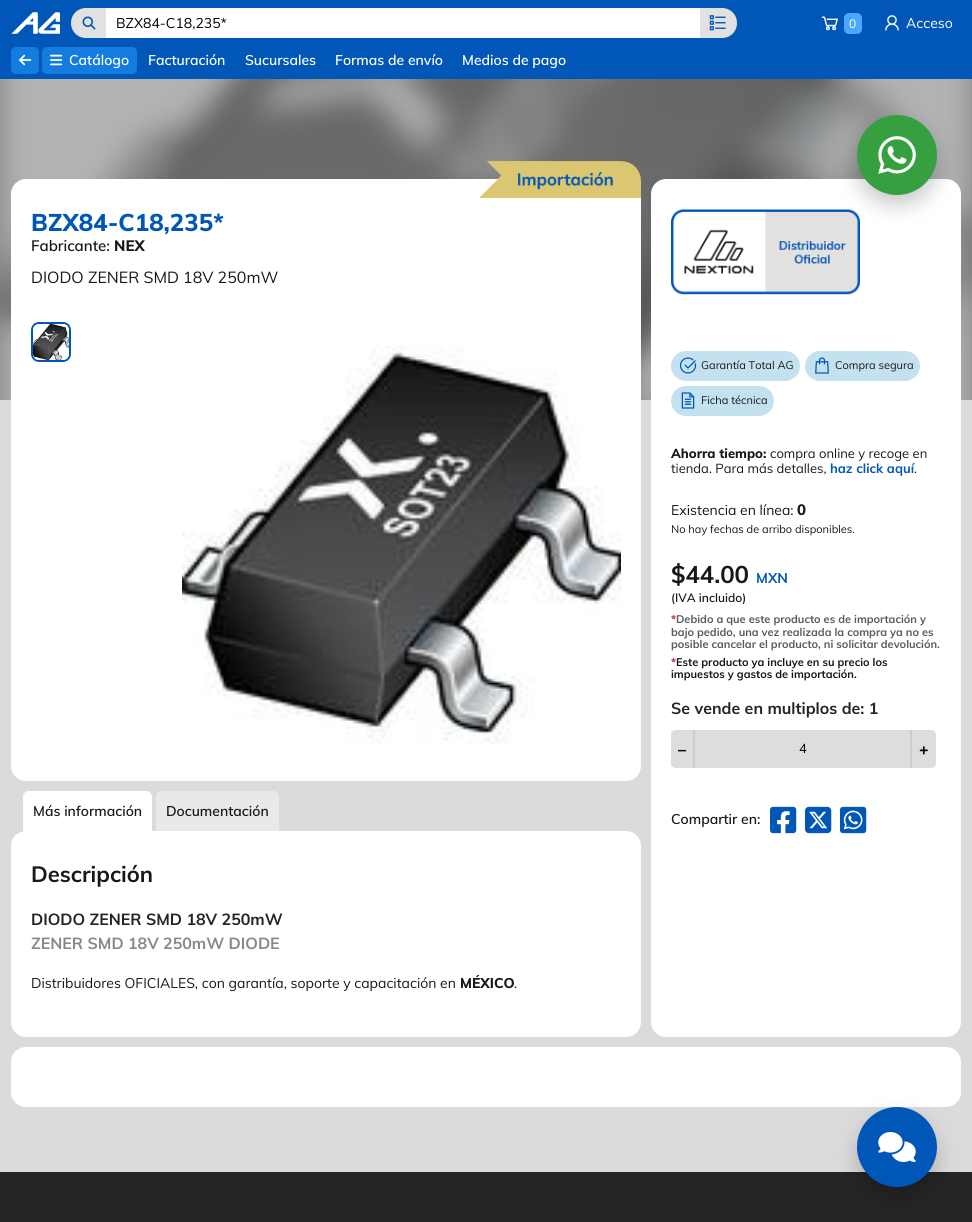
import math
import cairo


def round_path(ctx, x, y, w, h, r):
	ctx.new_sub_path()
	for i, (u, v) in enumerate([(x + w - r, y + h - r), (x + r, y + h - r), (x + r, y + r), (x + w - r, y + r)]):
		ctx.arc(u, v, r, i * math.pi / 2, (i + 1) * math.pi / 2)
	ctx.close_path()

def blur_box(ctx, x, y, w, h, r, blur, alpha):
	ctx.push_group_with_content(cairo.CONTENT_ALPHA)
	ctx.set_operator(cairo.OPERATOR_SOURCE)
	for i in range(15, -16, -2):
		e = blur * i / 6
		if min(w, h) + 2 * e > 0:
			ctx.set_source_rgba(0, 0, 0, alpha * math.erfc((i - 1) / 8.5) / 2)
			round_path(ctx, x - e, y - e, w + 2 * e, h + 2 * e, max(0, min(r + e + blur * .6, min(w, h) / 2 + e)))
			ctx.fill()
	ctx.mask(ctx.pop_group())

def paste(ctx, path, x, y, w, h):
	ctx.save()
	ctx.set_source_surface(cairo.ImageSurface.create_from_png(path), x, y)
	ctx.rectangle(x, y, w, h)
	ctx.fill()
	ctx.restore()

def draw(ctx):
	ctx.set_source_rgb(0.859, 0.859, 0.859)
	ctx.paint()
	ctx.set_source_rgb(0, 0.341, 0.722)
	ctx.rectangle(0, 0, 972, 79)
	ctx.fill()
	paste(ctx, 'media/1.png', 11, 12, 49, 22)
	ctx.set_source_rgb(0.882, 0.882, 0.882)
	ctx.new_path()
	ctx.move_to(86, 8)
	ctx.line_to(106, 8)
	ctx.line_to(106, 38)
	ctx.line_to(86, 38)
	ctx.curve_to(77.5, 38, 71, 31.5, 71, 23)
	ctx.curve_to(71, 14.5, 77.5, 8, 86, 8)
	ctx.close_path()
	ctx.fill()
	paste(ctx, 'media/2.png', 82, 16, 14, 14)
	ctx.set_source_rgb(1, 1, 1)
	ctx.rectangle(106, 8, 594, 30)
	ctx.fill()
	ctx.select_font_face('Muli')
	ctx.set_font_size(14)
	ctx.set_source_rgb(0, 0, 0)
	ctx.move_to(116, 28)
	ctx.show_text('BZX84-C18,235*')
	ctx.set_source_rgb(0.882, 0.882, 0.882)
	ctx.new_path()
	ctx.move_to(700, 8)
	ctx.line_to(722, 8)
	ctx.curve_to(730.5, 8, 737, 14.5, 737, 23)
	ctx.curve_to(737, 31.5, 730.5, 38, 722, 38)
	ctx.line_to(700, 38)
	ctx.close_path()
	ctx.fill()
	paste(ctx, 'media/3.png', 709, 15, 17, 16)
	paste(ctx, 'media/4.png', 821, 16, 17, 15)
	ctx.set_source_rgb(0.294, 0.655, 1)
	round_path(ctx, 844, 13, 18, 21, 5)
	ctx.fill()
	ctx.set_font_size(12)
	ctx.set_source_rgb(1, 1, 1)
	ctx.move_to(849, 28)
	ctx.show_text('0')
	paste(ctx, 'media/5.png', 885, 15, 14, 16)
	ctx.set_font_size(14)
	ctx.move_to(906, 28)
	ctx.show_text('Acceso')
	ctx.set_source_rgb(0.082, 0.486, 0.871)
	round_path(ctx, 11, 47, 28, 27, 5)
	ctx.fill()
	paste(ctx, 'media/6.png', 19, 54, 13, 12)
	round_path(ctx, 42, 47, 95, 27, 5)
	ctx.fill()
	paste(ctx, 'media/7.png', 50, 54, 13, 12)
	ctx.select_font_face('Muli SemiBold')
	ctx.set_source_rgb(1, 1, 1)
	for x, y, s in [
		(69, 65, 'Catálogo'),
		(148, 65, 'Facturación'),
		(245, 65, 'Sucursales'),
		(335, 65, 'Formas de envío'),
		(462, 65, 'Medios de pago'),
	]:
		ctx.move_to(x, y)
		ctx.show_text(s)
	ctx.set_source_rgb(0.502, 0.502, 0.502)
	ctx.rectangle(0, 79, 972, 321)
	ctx.fill()
	paste(ctx, 'media/8.png', 0, 79, 972, 321)
	ctx.set_source_rgb(1, 1, 1)
	round_path(ctx, 11, 179, 630, 602, 15)
	ctx.fill()
	paste(ctx, 'media/9.png', 479, 161, 162, 37)
	ctx.select_font_face('Muli ExtraBold')
	ctx.set_font_size(24)
	ctx.set_source_rgb(0, 0.341, 0.722)
	ctx.move_to(31, 231)
	ctx.show_text('BZX84-C18,235*')
	ctx.select_font_face('Muli SemiBold')
	ctx.set_font_size(15)
	ctx.set_source_rgb(0.094, 0.094, 0.094)
	ctx.move_to(31, 251)
	ctx.show_text('Fabricante:')
	ctx.select_font_face('Muli ExtraBold')
	ctx.move_to(114, 251)
	ctx.show_text('NEX')
	ctx.select_font_face('Muli')
	ctx.set_font_size(16)
	ctx.move_to(31, 283)
	ctx.show_text('DIODO ZENER SMD 18V 250mW')
	round_path(ctx, 32, 323, 38, 38, 7)
	ctx.set_source_rgb(0, 0.341, 0.722)
	ctx.stroke()
	paste(ctx, 'media/10.png', 33, 324, 36, 36)
	paste(ctx, 'media/11.png', 182, 345, 439, 399)
	ctx.set_source_rgb(1, 1, 1)
	ctx.new_path()
	ctx.move_to(29, 791)
	ctx.line_to(146, 791)
	ctx.curve_to(149.5, 791, 152, 793.5, 152, 797)
	ctx.line_to(152, 832)
	ctx.line_to(23, 832)
	ctx.line_to(23, 797)
	ctx.curve_to(23, 793.5, 25.5, 791, 29, 791)
	ctx.close_path()
	ctx.fill()
	ctx.select_font_face('Muli SemiBold')
	ctx.set_font_size(14)
	ctx.set_source_rgb(0.094, 0.094, 0.094)
	ctx.move_to(33, 816)
	ctx.show_text('Más información')
	ctx.set_source_rgb(0.914, 0.914, 0.914)
	ctx.new_path()
	ctx.move_to(162, 791)
	ctx.line_to(273, 791)
	ctx.curve_to(276.5, 791, 279, 793.5, 279, 797)
	ctx.line_to(279, 832)
	ctx.line_to(156, 832)
	ctx.line_to(156, 797)
	ctx.curve_to(156, 793.5, 158.5, 791, 162, 791)
	ctx.close_path()
	ctx.fill()
	ctx.set_source_rgb(0.094, 0.094, 0.094)
	ctx.move_to(166, 816)
	ctx.show_text('Documentación')
	ctx.set_source_rgb(1, 1, 1)
	round_path(ctx, 11, 831, 630, 206, 15)
	ctx.fill()
	ctx.select_font_face('Muli', cairo.FONT_SLANT_NORMAL, cairo.FONT_WEIGHT_BOLD)
	ctx.set_font_size(22)
	ctx.set_source_rgb(0.094, 0.094, 0.094)
	ctx.move_to(31, 882)
	ctx.show_text('Descripción')
	ctx.set_font_size(16)
	ctx.set_source_rgb(0.129, 0.145, 0.161)
	ctx.move_to(31, 925)
	ctx.show_text('DIODO ZENER SMD 18V 250mW')
	ctx.set_source_rgb(0.533, 0.533, 0.533)
	ctx.move_to(31, 949)
	ctx.show_text('ZENER SMD 18V 250mW DIODE')
	ctx.select_font_face('Muli')
	ctx.set_font_size(14)
	ctx.set_source_rgb(0.094, 0.094, 0.094)
	ctx.move_to(31, 988)
	ctx.show_text('Distribuidores OFICIALES, con garantía, soporte y capacitación en')
	ctx.select_font_face('Muli ExtraBold')
	ctx.move_to(460, 988)
	ctx.show_text('MÉXICO')
	ctx.select_font_face('Muli')
	ctx.move_to(514, 988)
	ctx.show_text('.')
	ctx.set_source_rgb(1, 1, 1)
	round_path(ctx, 651, 179, 310, 858, 15)
	ctx.fill()
	paste(ctx, 'media/12.png', 671, 209, 189, 86)
	ctx.set_source_rgb(0.769, 0.882, 0.941)
	round_path(ctx, 671, 351, 129, 30, 15)
	ctx.fill()
	paste(ctx, 'media/13.png', 679, 357, 18, 17)
	ctx.set_font_size(11)
	ctx.set_source_rgb(0.094, 0.094, 0.094)
	ctx.move_to(701, 369)
	ctx.show_text('Garantía Total AG')
	ctx.set_source_rgb(0.769, 0.882, 0.941)
	round_path(ctx, 805, 351, 115, 30, 15)
	ctx.fill()
	paste(ctx, 'media/14.png', 815, 357, 14, 17)
	ctx.set_source_rgb(0.094, 0.094, 0.094)
	ctx.move_to(835, 369)
	ctx.show_text('Compra segura')
	ctx.set_source_rgb(0.769, 0.882, 0.941)
	round_path(ctx, 671, 386, 103, 30, 15)
	ctx.fill()
	paste(ctx, 'media/15.png', 681, 392, 14, 17)
	ctx.set_source_rgb(0.094, 0.094, 0.094)
	ctx.move_to(701, 404)
	ctx.show_text('Ficha técnica')
	ctx.select_font_face('Muli ExtraBold')
	ctx.set_font_size(13)
	ctx.move_to(671, 458)
	ctx.show_text('Ahorra tiempo:')
	ctx.select_font_face('Muli')
	ctx.move_to(770, 458)
	ctx.show_text('compra online y recoge en')
	ctx.move_to(671, 473)
	ctx.show_text('tienda. Para más detalles,')
	ctx.select_font_face('Muli', cairo.FONT_SLANT_NORMAL, cairo.FONT_WEIGHT_BOLD)
	ctx.set_source_rgb(0, 0.341, 0.722)
	ctx.move_to(830, 473)
	ctx.show_text('haz click aquí')
	ctx.select_font_face('Muli')
	ctx.set_source_rgb(0.094, 0.094, 0.094)
	ctx.move_to(914, 473)
	ctx.show_text('.')
	ctx.set_font_size(14)
	ctx.move_to(671, 515)
	ctx.show_text('Existencia en línea:')
	ctx.select_font_face('Muli ExtraBold')
	ctx.set_font_size(15)
	ctx.move_to(797, 515)
	ctx.show_text('0')
	ctx.select_font_face('Muli')
	ctx.set_font_size(11)
	ctx.move_to(671, 533)
	ctx.show_text('No hay fechas de arribo disponibles.')
	ctx.select_font_face('Muli', cairo.FONT_SLANT_NORMAL, cairo.FONT_WEIGHT_BOLD)
	ctx.set_font_size(24)
	ctx.move_to(671, 583)
	ctx.show_text('$44.00')
	ctx.set_font_size(14)
	ctx.set_source_rgb(0, 0.341, 0.722)
	ctx.move_to(756, 583)
	ctx.show_text('MXN')
	ctx.select_font_face('Muli SemiBold')
	ctx.set_font_size(12)
	ctx.set_source_rgb(0.094, 0.094, 0.094)
	ctx.move_to(671, 602)
	ctx.show_text('(IVA incluido)')
	ctx.select_font_face('Muli Black')
	ctx.set_font_size(11)
	ctx.set_source_rgb(0.863, 0.208, 0.271)
	ctx.move_to(671, 623)
	ctx.show_text('*')
	ctx.select_font_face('Muli', cairo.FONT_SLANT_NORMAL, cairo.FONT_WEIGHT_BOLD)
	ctx.set_source_rgb(0.349, 0.361, 0.373)
	for x, y, s in [
		(676, 623, 'Debido a que este producto es de importación y'),
		(671, 636, 'bajo pedido, una vez realizada la compra ya no es'),
		(671, 648, 'posible cancelar el producto, ni solicitar devolución.'),
	]:
		ctx.move_to(x, y)
		ctx.show_text(s)
	ctx.select_font_face('Muli Black')
	ctx.set_source_rgb(0.863, 0.208, 0.271)
	ctx.move_to(671, 666)
	ctx.show_text('*')
	ctx.select_font_face('Muli', cairo.FONT_SLANT_NORMAL, cairo.FONT_WEIGHT_BOLD)
	ctx.set_source_rgb(0.094, 0.094, 0.094)
	ctx.move_to(676, 666)
	ctx.show_text('Este producto ya incluye en su precio los')
	ctx.move_to(671, 678)
	ctx.show_text('impuestos y gastos de importación.')
	ctx.set_font_size(16)
	ctx.set_source_rgb(0.129, 0.145, 0.161)
	ctx.move_to(671, 714)
	ctx.show_text('Se vende en multiplos de: 1')
	ctx.set_source_rgb(0.867, 0.867, 0.867)
	ctx.new_path()
	ctx.move_to(676, 730)
	ctx.line_to(695, 730)
	ctx.line_to(695, 768)
	ctx.line_to(676, 768)
	ctx.curve_to(673, 768, 671, 766, 671, 763)
	ctx.line_to(671, 735)
	ctx.curve_to(671, 732, 673, 730, 676, 730)
	ctx.close_path()
	ctx.fill()
	ctx.set_source_rgb(0.804, 0.804, 0.804)
	ctx.rectangle(693, 730, 2, 38)
	ctx.fill()
	ctx.select_font_face('Muli ExtraBold')
	ctx.set_source_rgb(0, 0, 0)
	ctx.move_to(678, 755)
	ctx.show_text('–')
	ctx.set_source_rgb(0.867, 0.867, 0.867)
	ctx.rectangle(695, 730, 215, 38)
	ctx.fill()
	ctx.select_font_face('Muli')
	ctx.set_font_size(13)
	ctx.set_source_rgb(0, 0, 0)
	ctx.move_to(799, 753)
	ctx.show_text('4')
	ctx.set_source_rgb(0.867, 0.867, 0.867)
	ctx.new_path()
	ctx.move_to(910, 730)
	ctx.line_to(931, 730)
	ctx.curve_to(934, 730, 936, 732, 936, 735)
	ctx.line_to(936, 763)
	ctx.curve_to(936, 766, 934, 768, 931, 768)
	ctx.line_to(910, 768)
	ctx.close_path()
	ctx.fill()
	ctx.set_source_rgb(0.804, 0.804, 0.804)
	ctx.rectangle(910, 730, 2, 38)
	ctx.fill()
	ctx.select_font_face('Muli ExtraBold')
	ctx.set_font_size(16)
	ctx.set_source_rgb(0, 0, 0)
	ctx.move_to(919, 755)
	ctx.show_text('+')
	ctx.select_font_face('Muli SemiBold')
	ctx.set_font_size(14)
	ctx.set_source_rgb(0.094, 0.094, 0.094)
	ctx.move_to(671, 824)
	ctx.show_text('Compartir en:')
	paste(ctx, 'media/16.png', 770, 806, 27, 28)
	paste(ctx, 'media/17.png', 805, 806, 27, 28)
	paste(ctx, 'media/18.png', 840, 806, 27, 28)
	ctx.set_source_rgb(1, 1, 1)
	round_path(ctx, 11, 1047, 950, 60, 15)
	ctx.fill()
	ctx.set_source_rgb(0, 0, 0)
	blur_box(ctx, 857, 125, 80, 80, 40, 10, 0.2)
	ctx.set_source_rgb(0.212, 0.627, 0.255)
	ctx.arc(897, 155, 40, 0, 2 * math.pi)
	ctx.fill()
	paste(ctx, 'media/19.png', 878, 136, 38, 38)
	ctx.set_source_rgb(0.145, 0.145, 0.145)
	ctx.rectangle(0, 1172, 972, 50)
	ctx.fill()
	ctx.set_source_rgb(0, 0, 0)
	blur_box(ctx, 857, 1117, 80, 80, 40, 10, 0.2)
	ctx.set_source_rgb(0, 0.341, 0.722)
	ctx.arc(897, 1147, 40, 0, 2 * math.pi)
	ctx.fill()
	paste(ctx, 'media/20.png', 878, 1132, 38, 30)


surface = cairo.ImageSurface(cairo.FORMAT_RGB24, 972, 1222)
ctx = cairo.Context(surface)
options = cairo.FontOptions()
options.set_hint_metrics(cairo.HINT_METRICS_OFF)
options.set_hint_style(cairo.HINT_STYLE_NONE)
ctx.set_font_options(options)
ctx.set_miter_limit(4)
draw(ctx)
surface.write_to_png('image.png')
